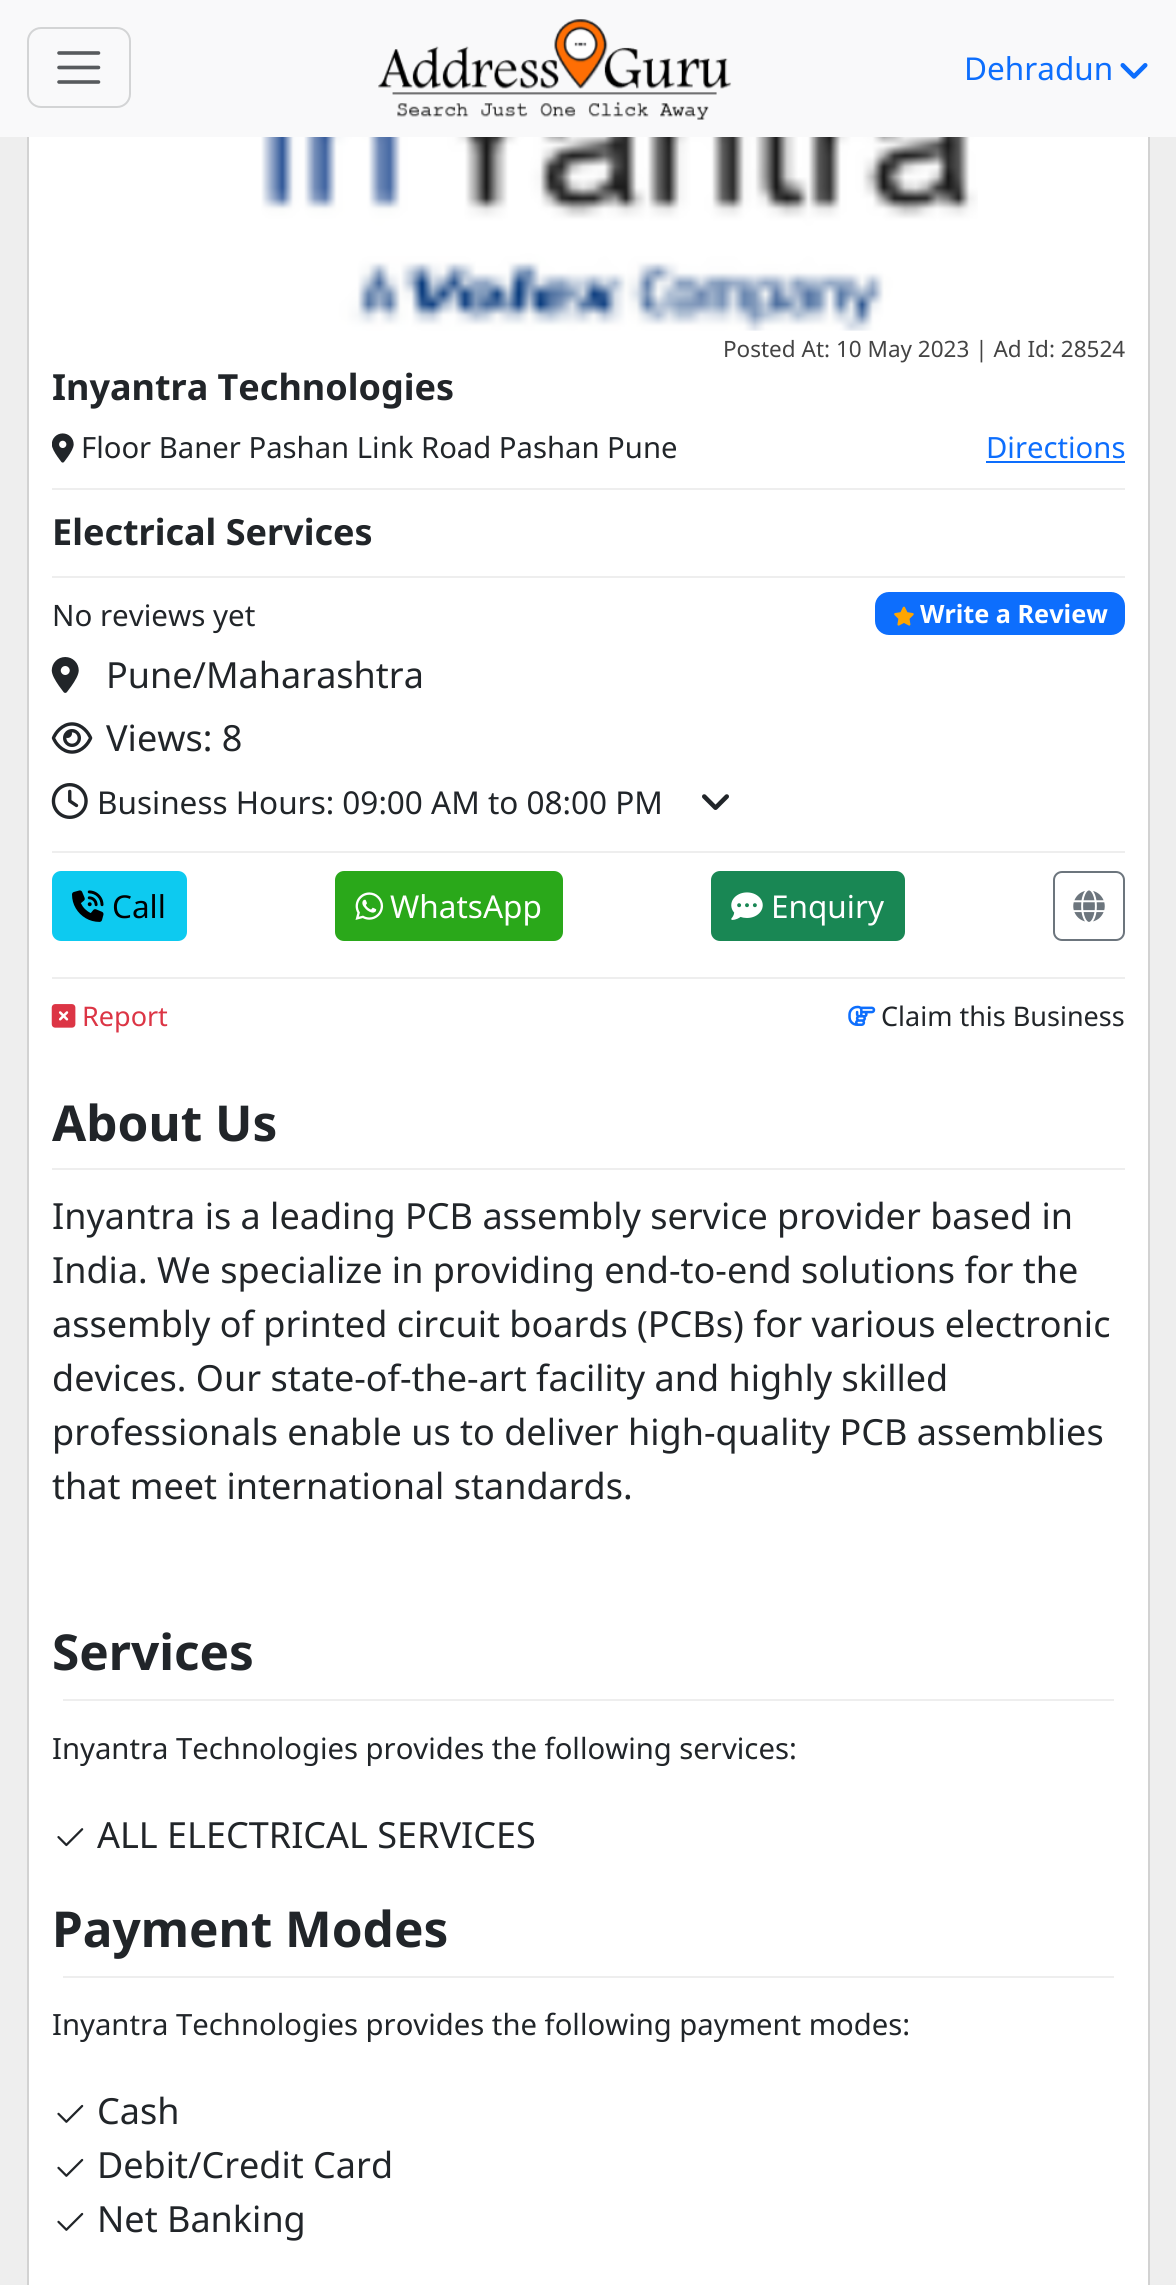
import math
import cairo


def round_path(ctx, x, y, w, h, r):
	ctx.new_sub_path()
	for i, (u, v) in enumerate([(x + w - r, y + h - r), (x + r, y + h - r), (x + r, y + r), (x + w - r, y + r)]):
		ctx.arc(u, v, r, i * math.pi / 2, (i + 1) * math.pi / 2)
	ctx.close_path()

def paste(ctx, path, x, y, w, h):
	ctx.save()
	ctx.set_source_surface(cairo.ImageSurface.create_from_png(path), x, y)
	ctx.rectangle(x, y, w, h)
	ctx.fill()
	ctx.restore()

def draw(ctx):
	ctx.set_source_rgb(0.933, 0.933, 0.933)
	ctx.paint()
	ctx.set_source_rgb(1, 1, 1)
	ctx.rectangle(29, 137, 1119, 2148)
	ctx.fill()
	ctx.rectangle(28, -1, 1121, 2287)
	ctx.set_source_rgb(0.824, 0.824, 0.824)
	ctx.stroke()
	ctx.set_source_rgb(0.973, 0.976, 0.98)
	ctx.rectangle(0, 0, 1176, 137)
	ctx.fill()
	round_path(ctx, 28, 28, 102, 79, 13)
	ctx.set_source_rgb(0.827, 0.831, 0.835)
	ctx.stroke()
	ctx.new_path()
	ctx.move_to(59, 53)
	ctx.line_to(98.5, 53)
	ctx.move_to(59, 67.5)
	ctx.line_to(98.5, 67.5)
	ctx.move_to(59, 82)
	ctx.line_to(98.5, 82)
	ctx.set_source_rgb(0.341, 0.353, 0.365)
	ctx.set_line_width(3.6)
	ctx.set_line_cap(cairo.LINE_CAP_ROUND)
	ctx.stroke()
	paste(ctx, 'media/1.png', 378, 19, 354, 101)
	ctx.select_font_face('Noto Sans')
	ctx.set_font_size(31.5)
	ctx.set_source_rgb(0.051, 0.431, 0.992)
	ctx.move_to(964, 80)
	ctx.show_text('Dehradun')
	paste(ctx, 'media/2.png', 1120, 63, 28, 16)
	paste(ctx, 'media/3.png', 261, 137, 717, 194)
	ctx.set_font_size(22.5)
	ctx.set_source_rgb(0.267, 0.267, 0.267)
	ctx.move_to(723, 357)
	ctx.show_text('Posted At: 10 May 2023 | Ad Id: 28524')
	ctx.select_font_face('Noto Sans', cairo.FONT_SLANT_NORMAL, cairo.FONT_WEIGHT_BOLD)
	ctx.set_font_size(36)
	ctx.set_source_rgb(0.129, 0.145, 0.161)
	ctx.move_to(52, 400)
	ctx.show_text('Inyantra Technologies')
	paste(ctx, 'media/4.png', 52, 433, 22, 30)
	ctx.select_font_face('Noto Sans')
	ctx.set_font_size(29.25)
	ctx.move_to(81, 458)
	ctx.show_text('Floor Baner Pashan Link Road Pashan Pune')
	ctx.set_source_rgb(0.051, 0.431, 0.992)
	ctx.move_to(986, 458)
	ctx.show_text('Directions')
	ctx.rectangle(986, 461, 139, 2)
	ctx.fill()
	ctx.set_source_rgb(0.933, 0.933, 0.933)
	ctx.rectangle(52, 488, 1073, 2)
	ctx.fill()
	ctx.select_font_face('Noto Sans', cairo.FONT_SLANT_NORMAL, cairo.FONT_WEIGHT_BOLD)
	ctx.set_font_size(36)
	ctx.set_source_rgb(0.129, 0.145, 0.161)
	ctx.move_to(52, 545)
	ctx.show_text('Electrical Services')
	ctx.set_source_rgb(0.933, 0.933, 0.933)
	ctx.rectangle(52, 576, 1073, 2)
	ctx.fill()
	ctx.select_font_face('Noto Sans')
	ctx.set_font_size(29.5)
	ctx.set_source_rgb(0.129, 0.145, 0.161)
	ctx.move_to(52, 626)
	ctx.show_text('No reviews yet')
	ctx.set_source_rgb(0.051, 0.431, 0.992)
	round_path(ctx, 875, 592, 250, 43, 14)
	ctx.fill()
	paste(ctx, 'media/5.png', 894, 606, 20, 20)
	ctx.select_font_face('Noto Sans', cairo.FONT_SLANT_NORMAL, cairo.FONT_WEIGHT_BOLD)
	ctx.set_font_size(25.25)
	ctx.set_source_rgb(1, 1, 1)
	ctx.move_to(920, 623)
	ctx.show_text('Write a Review')
	paste(ctx, 'media/6.png', 51, 657, 28, 36)
	ctx.select_font_face('Noto Sans')
	ctx.set_font_size(36)
	ctx.set_source_rgb(0.129, 0.145, 0.161)
	ctx.move_to(106, 688)
	ctx.show_text('Pune/Maharashtra')
	paste(ctx, 'media/7.png', 51, 722, 42, 32)
	ctx.move_to(106, 751)
	ctx.show_text('Views: 8')
	paste(ctx, 'media/8.png', 51, 783, 37, 36)
	ctx.set_font_size(31.5)
	ctx.move_to(97, 814)
	ctx.show_text('Business Hours: 09:00 AM to 08:00 PM')
	paste(ctx, 'media/9.png', 702, 794, 27, 16)
	ctx.set_source_rgb(0.933, 0.933, 0.933)
	ctx.rectangle(52, 851, 1073, 2)
	ctx.fill()
	ctx.set_source_rgb(0.051, 0.792, 0.941)
	round_path(ctx, 53, 872, 133, 68, 8)
	ctx.fill_preserve()
	ctx.set_line_width(2)
	ctx.set_line_cap(cairo.LINE_CAP_BUTT)
	ctx.stroke()
	paste(ctx, 'media/10.png', 72, 890, 32, 32)
	ctx.set_source_rgb(0, 0, 0)
	ctx.move_to(112, 918)
	ctx.show_text('Call')
	ctx.set_source_rgb(0.165, 0.659, 0.102)
	round_path(ctx, 336, 872, 226, 68, 8)
	ctx.fill_preserve()
	ctx.stroke()
	paste(ctx, 'media/11.png', 355, 892, 29, 28)
	ctx.set_source_rgb(1, 1, 1)
	ctx.move_to(390, 918)
	ctx.show_text('WhatsApp')
	ctx.set_source_rgb(0.098, 0.529, 0.329)
	round_path(ctx, 712, 872, 192, 68, 8)
	ctx.fill_preserve()
	ctx.stroke()
	paste(ctx, 'media/12.png', 731, 892, 32, 28)
	ctx.set_source_rgb(1, 1, 1)
	ctx.move_to(771, 918)
	ctx.show_text('Enquiry')
	round_path(ctx, 1054, 872, 70, 68, 8)
	ctx.set_source_rgb(0.424, 0.459, 0.49)
	ctx.stroke()
	paste(ctx, 'media/13.png', 1073, 890, 32, 32)
	ctx.set_source_rgb(0.933, 0.933, 0.933)
	ctx.rectangle(52, 977, 1073, 2)
	ctx.fill()
	paste(ctx, 'media/14.png', 51, 1004, 25, 24)
	ctx.set_font_size(27)
	ctx.set_source_rgb(0.863, 0.208, 0.271)
	ctx.move_to(82, 1026)
	ctx.show_text('Report')
	paste(ctx, 'media/15.png', 848, 1005, 28, 21)
	ctx.set_source_rgb(0.129, 0.145, 0.161)
	ctx.move_to(881, 1026)
	ctx.show_text('Claim this Business')
	ctx.select_font_face('Noto Sans', cairo.FONT_SLANT_NORMAL, cairo.FONT_WEIGHT_BOLD)
	ctx.set_font_size(49.5)
	ctx.move_to(52, 1141)
	ctx.show_text('About Us')
	ctx.set_source_rgb(0.933, 0.933, 0.933)
	ctx.rectangle(52, 1168, 1073, 2)
	ctx.fill()
	ctx.select_font_face('Noto Sans')
	ctx.set_font_size(36)
	ctx.set_source_rgb(0.129, 0.145, 0.161)
	for x, y, s in [
		(52, 1229, 'Inyantra is a leading PCB assembly service provider based in'),
		(52, 1283, 'India. We specialize in providing end-to-end solutions for the'),
		(52, 1337, 'assembly of printed circuit boards (PCBs) for various electronic'),
		(52, 1391, 'devices. Our state-of-the-art facility and highly skilled'),
		(52, 1445, 'professionals enable us to deliver high-quality PCB assemblies'),
		(52, 1499, 'that meet international standards.'),
	]:
		ctx.move_to(x, y)
		ctx.show_text(s)
	ctx.select_font_face('Noto Sans', cairo.FONT_SLANT_NORMAL, cairo.FONT_WEIGHT_BOLD)
	ctx.set_font_size(49.5)
	ctx.move_to(52, 1670)
	ctx.show_text('Services')
	ctx.set_source_rgb(0.933, 0.933, 0.933)
	ctx.rectangle(63, 1699, 1051, 2)
	ctx.fill()
	ctx.select_font_face('Noto Sans')
	ctx.set_font_size(29.25)
	ctx.set_source_rgb(0.129, 0.145, 0.161)
	ctx.move_to(52, 1759)
	ctx.show_text('Inyantra Technologies provides the following services:')
	paste(ctx, 'media/16.png', 57, 1828, 27, 19)
	ctx.set_font_size(36)
	ctx.move_to(97, 1848)
	ctx.show_text('ALL ELECTRICAL SERVICES')
	ctx.select_font_face('Noto Sans', cairo.FONT_SLANT_NORMAL, cairo.FONT_WEIGHT_BOLD)
	ctx.set_font_size(49.5)
	ctx.move_to(52, 1947)
	ctx.show_text('Payment Modes')
	ctx.set_source_rgb(0.933, 0.933, 0.933)
	ctx.rectangle(63, 1976, 1051, 2)
	ctx.fill()
	ctx.select_font_face('Noto Sans')
	ctx.set_font_size(29.25)
	ctx.set_source_rgb(0.129, 0.145, 0.161)
	ctx.move_to(52, 2035)
	ctx.show_text('Inyantra Technologies provides the following payment modes:')
	paste(ctx, 'media/17.png', 57, 2104, 27, 19)
	ctx.set_font_size(36)
	ctx.move_to(97, 2124)
	ctx.show_text('Cash')
	paste(ctx, 'media/17.png', 57, 2158, 27, 19)
	ctx.move_to(97, 2178)
	ctx.show_text('Debit/Credit Card')
	paste(ctx, 'media/17.png', 57, 2212, 27, 19)
	ctx.move_to(97, 2232)
	ctx.show_text('Net Banking')


surface = cairo.ImageSurface(cairo.FORMAT_RGB24, 1176, 2285)
ctx = cairo.Context(surface)
options = cairo.FontOptions()
options.set_hint_metrics(cairo.HINT_METRICS_OFF)
options.set_hint_style(cairo.HINT_STYLE_NONE)
ctx.set_font_options(options)
ctx.set_miter_limit(4)
draw(ctx)
surface.write_to_png('image.png')
